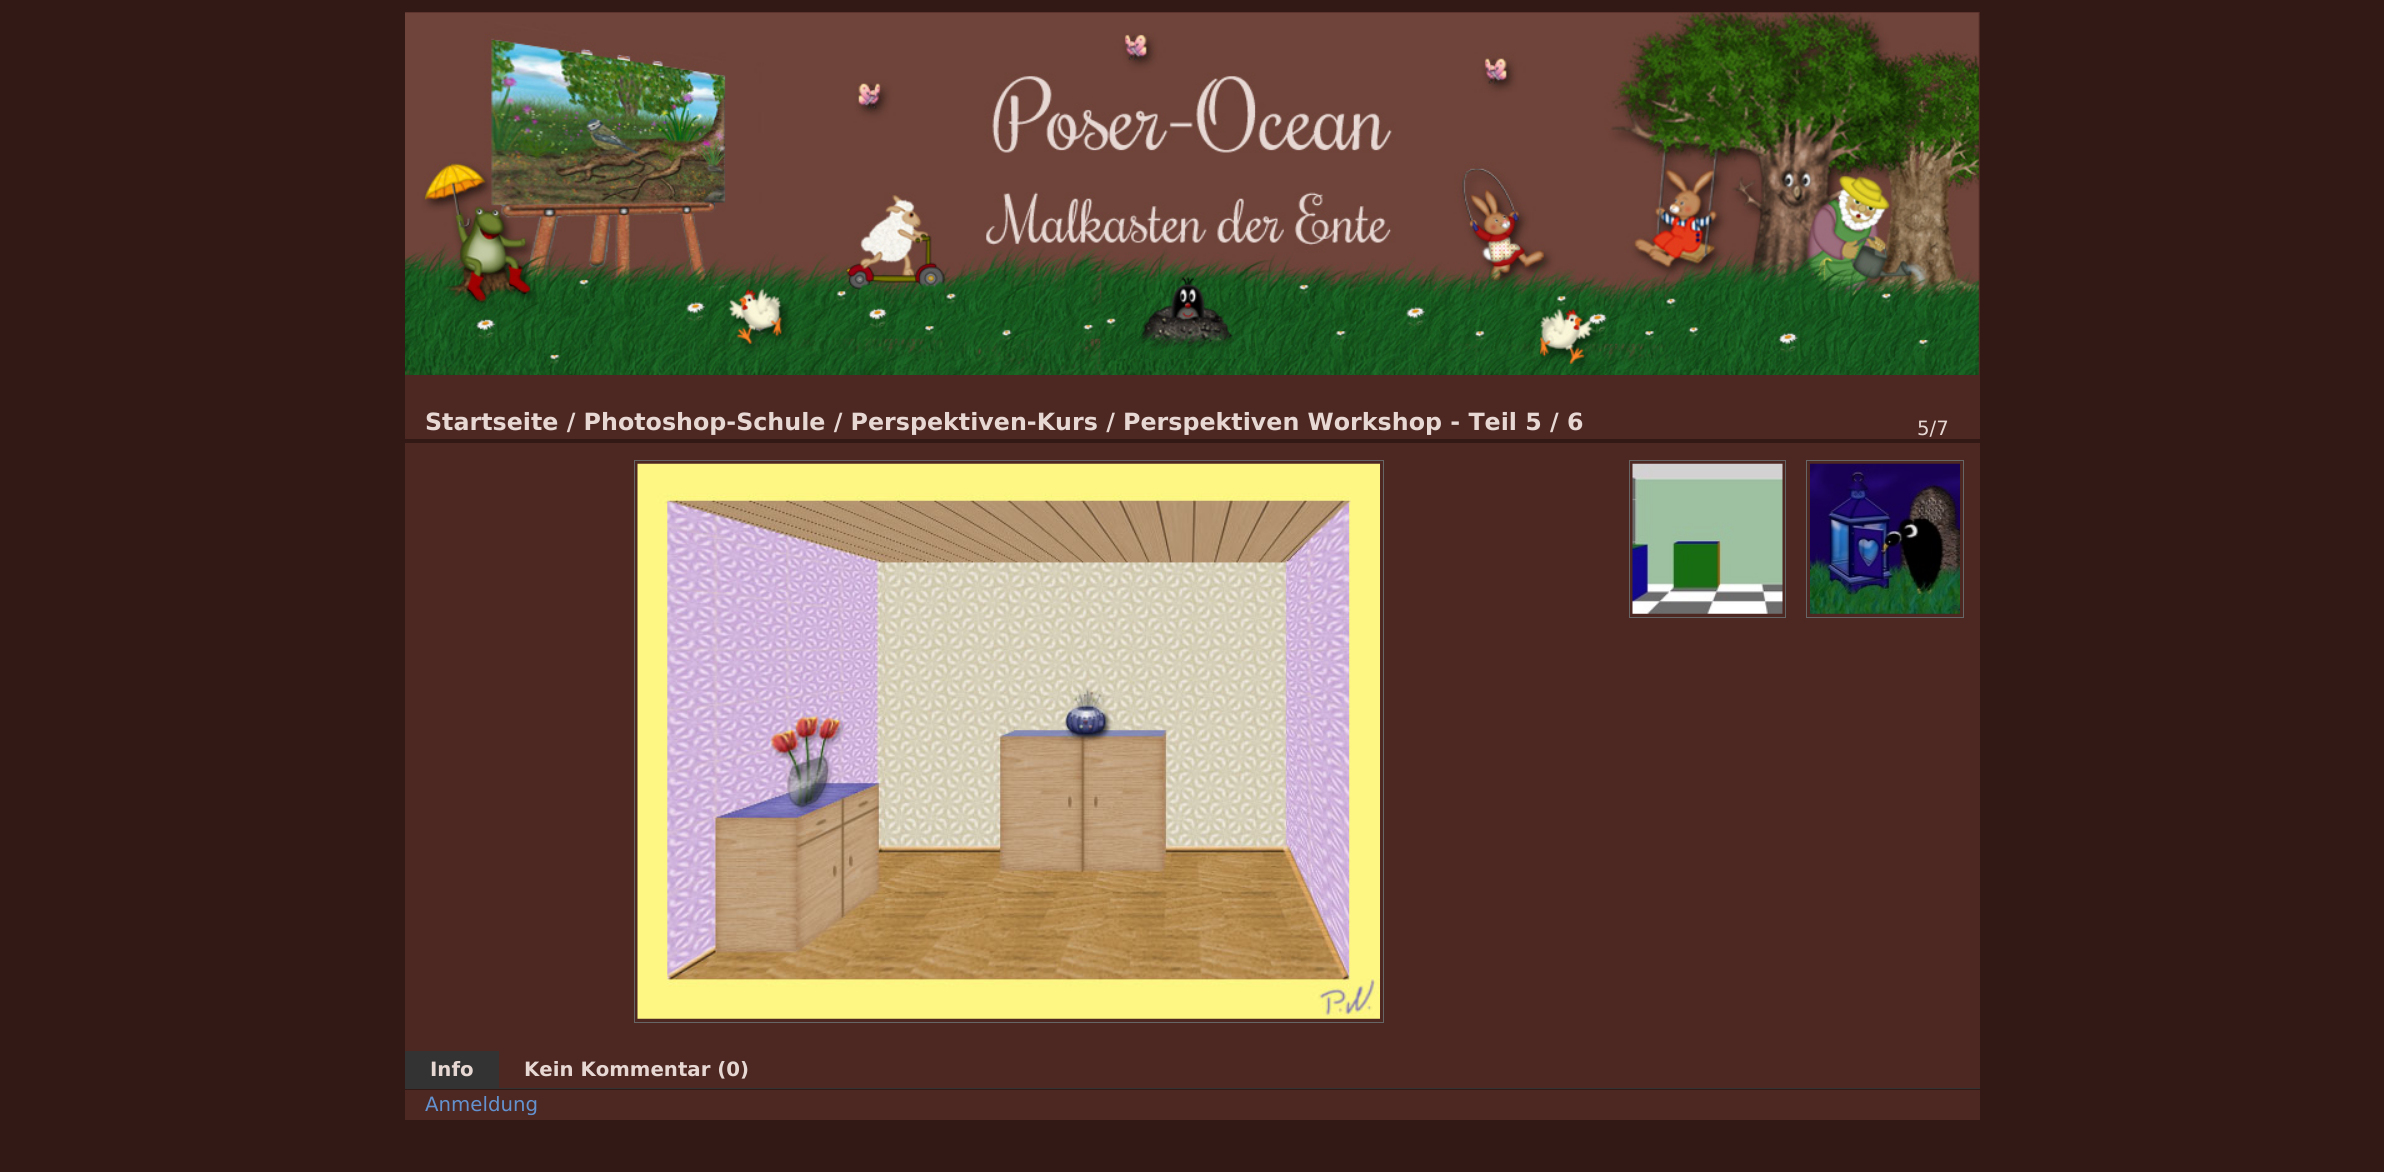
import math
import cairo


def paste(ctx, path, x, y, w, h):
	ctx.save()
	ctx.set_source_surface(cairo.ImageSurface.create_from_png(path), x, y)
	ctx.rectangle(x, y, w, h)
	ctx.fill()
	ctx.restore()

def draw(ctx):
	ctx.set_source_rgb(0.2, 0.098, 0.086)
	ctx.paint()
	ctx.set_source_rgb(0.302, 0.153, 0.133)
	ctx.rectangle(405, 12, 1575, 1108)
	ctx.fill()
	paste(ctx, 'media/1.png', 405, 12, 1574, 363)
	ctx.set_source_rgb(0.2, 0.098, 0.086)
	ctx.rectangle(405, 439, 1575, 4)
	ctx.fill()
	ctx.select_font_face('DejaVu Sans', cairo.FONT_SLANT_NORMAL, cairo.FONT_WEIGHT_BOLD)
	ctx.set_font_size(23.75)
	ctx.set_source_rgb(0.906, 0.847, 0.831)
	ctx.move_to(425, 430)
	ctx.show_text('Startseite / Photoshop-Schule / Perspektiven-Kurs / Perspektiven Workshop - Teil 5 / 6')
	ctx.select_font_face('DejaVu Sans')
	ctx.set_font_size(19.75)
	ctx.move_to(1917, 435)
	ctx.show_text('5/7')
	ctx.rectangle(634.5, 460.5, 749, 562)
	ctx.set_source_rgb(0.4, 0.4, 0.4)
	ctx.set_line_width(1)
	ctx.stroke()
	ctx.rectangle(1629.5, 460.5, 156, 157)
	ctx.stroke()
	paste(ctx, 'media/2.png', 1632, 463, 151, 151)
	ctx.rectangle(1806.5, 460.5, 157, 157)
	ctx.stroke()
	paste(ctx, 'media/3.png', 1810, 463, 150, 151)
	paste(ctx, 'media/4.png', 637, 463, 743, 556)
	ctx.set_source_rgb(0.2, 0.2, 0.2)
	ctx.rectangle(499, 1088, 1481, 1)
	ctx.fill()
	ctx.rectangle(405, 1051, 94, 38)
	ctx.fill()
	ctx.select_font_face('DejaVu Sans', cairo.FONT_SLANT_NORMAL, cairo.FONT_WEIGHT_BOLD)
	ctx.set_source_rgb(0.906, 0.847, 0.831)
	ctx.move_to(430, 1076)
	ctx.show_text('Info')
	ctx.move_to(524, 1076)
	ctx.show_text('Kein Kommentar (0)')
	ctx.set_source_rgb(0.2, 0.098, 0.086)
	ctx.rectangle(405, 1089, 1575, 1)
	ctx.fill()
	ctx.select_font_face('DejaVu Sans')
	ctx.set_source_rgb(0.388, 0.573, 0.812)
	ctx.move_to(425, 1111)
	ctx.show_text('Anmeldung')


surface = cairo.ImageSurface(cairo.FORMAT_RGB24, 2384, 1172)
ctx = cairo.Context(surface)
options = cairo.FontOptions()
options.set_hint_metrics(cairo.HINT_METRICS_OFF)
options.set_hint_style(cairo.HINT_STYLE_NONE)
ctx.set_font_options(options)
ctx.set_miter_limit(4)
draw(ctx)
surface.write_to_png('image.png')
